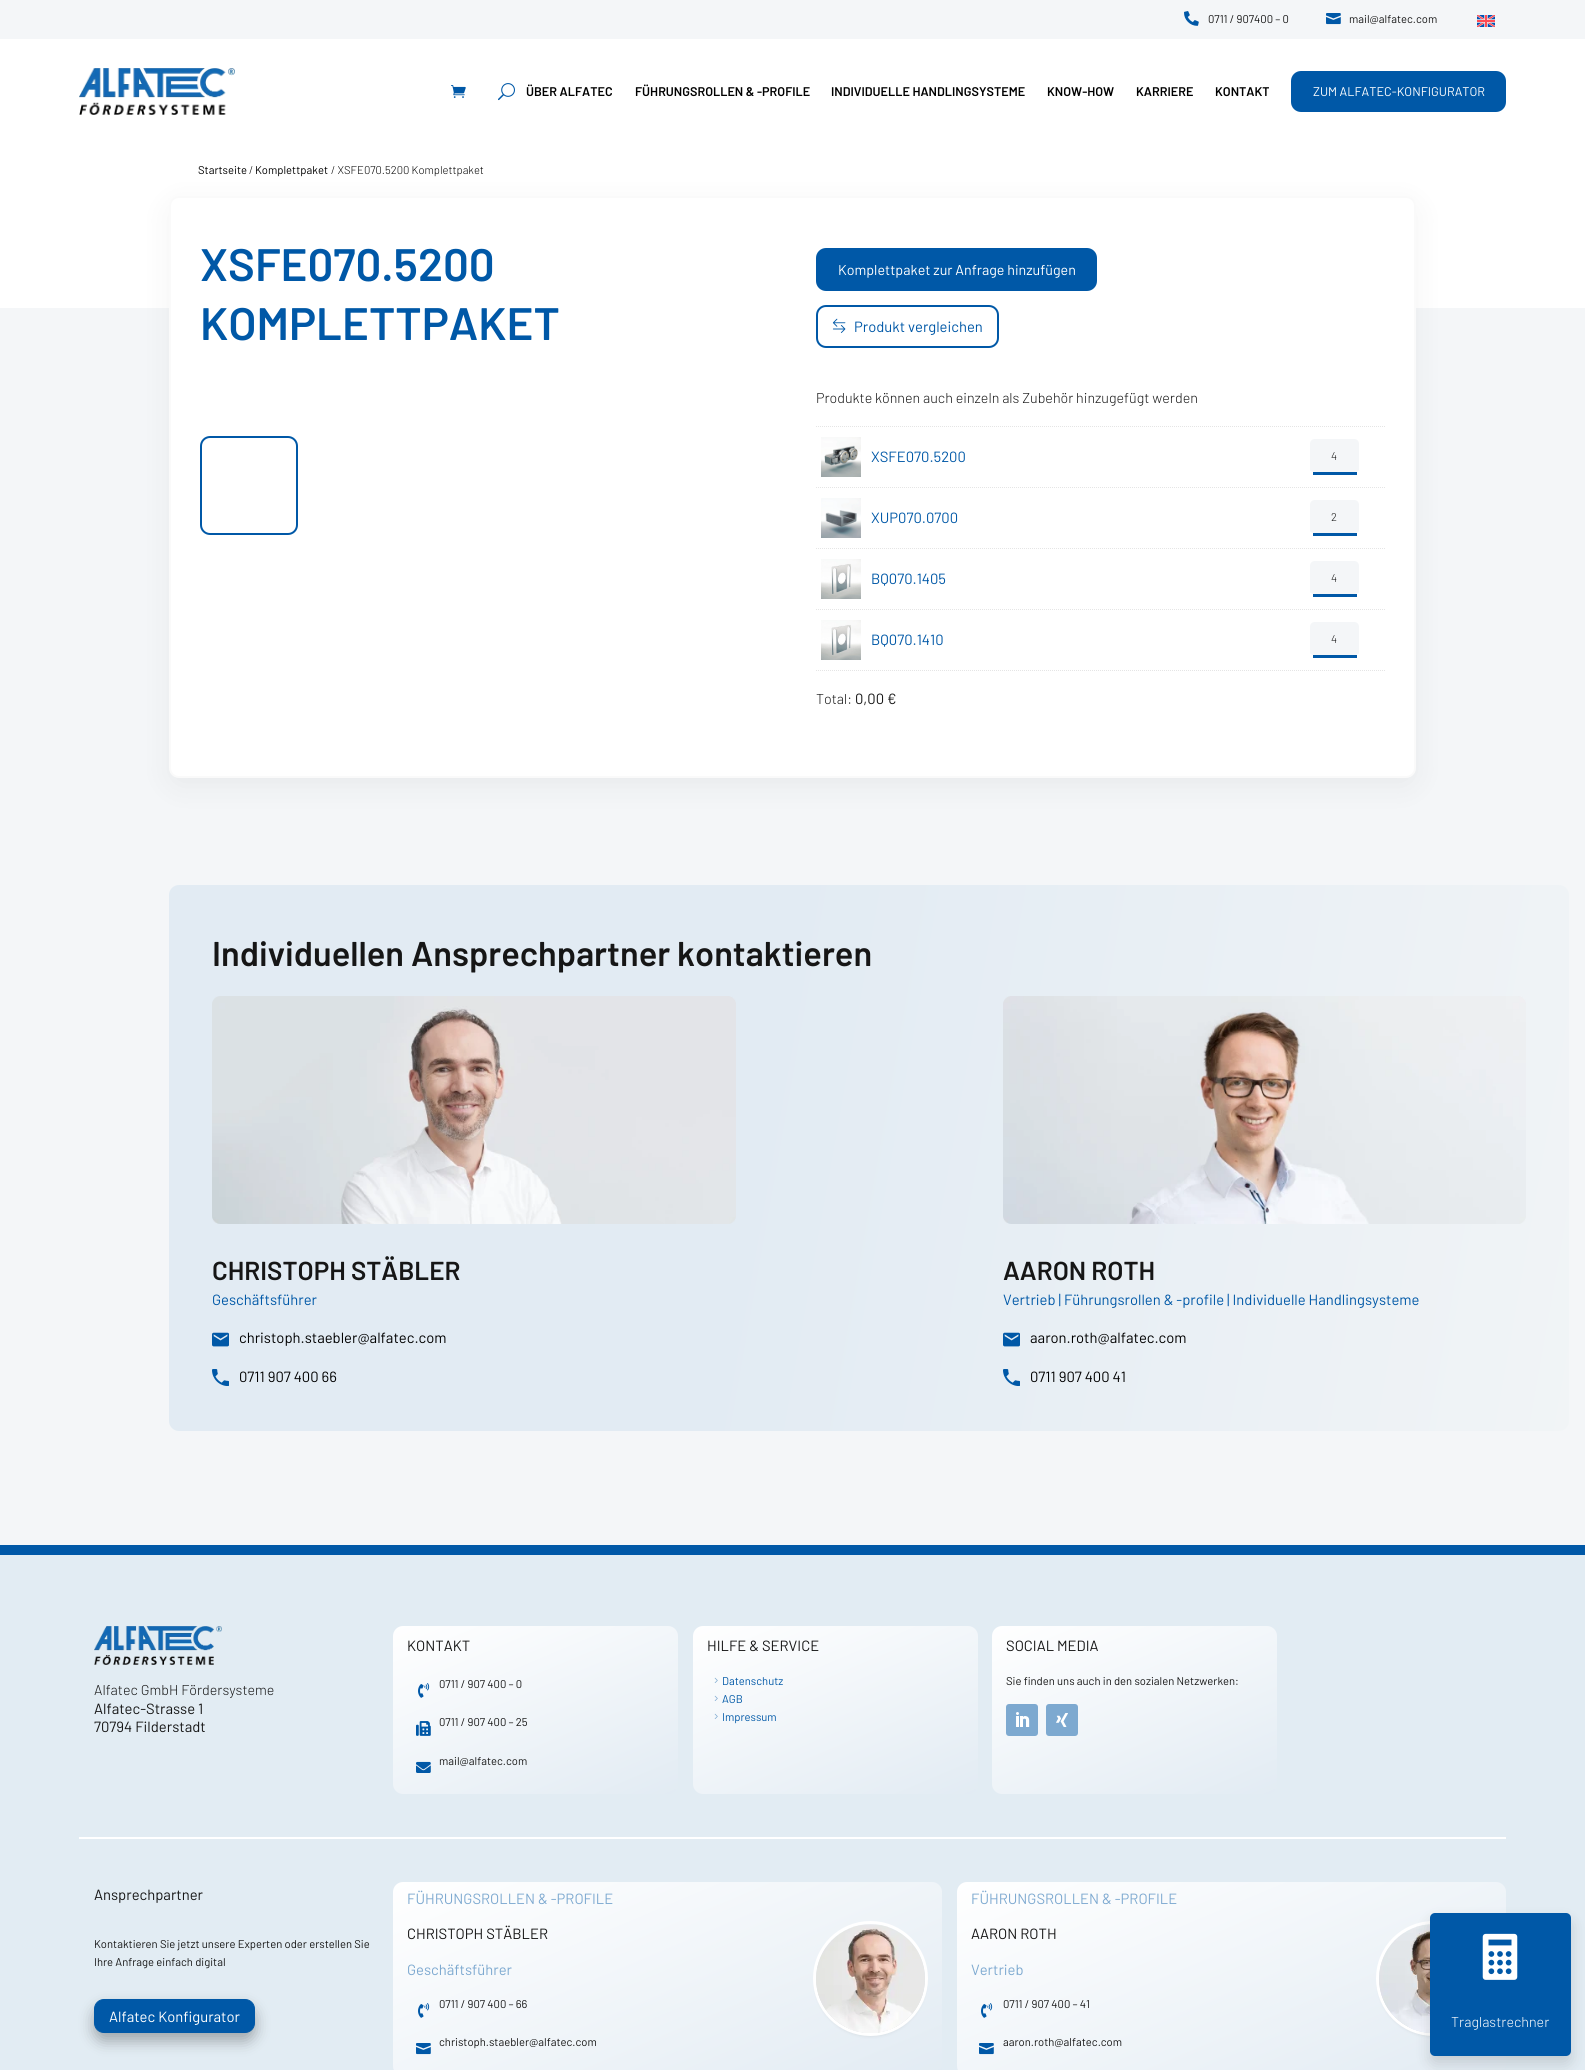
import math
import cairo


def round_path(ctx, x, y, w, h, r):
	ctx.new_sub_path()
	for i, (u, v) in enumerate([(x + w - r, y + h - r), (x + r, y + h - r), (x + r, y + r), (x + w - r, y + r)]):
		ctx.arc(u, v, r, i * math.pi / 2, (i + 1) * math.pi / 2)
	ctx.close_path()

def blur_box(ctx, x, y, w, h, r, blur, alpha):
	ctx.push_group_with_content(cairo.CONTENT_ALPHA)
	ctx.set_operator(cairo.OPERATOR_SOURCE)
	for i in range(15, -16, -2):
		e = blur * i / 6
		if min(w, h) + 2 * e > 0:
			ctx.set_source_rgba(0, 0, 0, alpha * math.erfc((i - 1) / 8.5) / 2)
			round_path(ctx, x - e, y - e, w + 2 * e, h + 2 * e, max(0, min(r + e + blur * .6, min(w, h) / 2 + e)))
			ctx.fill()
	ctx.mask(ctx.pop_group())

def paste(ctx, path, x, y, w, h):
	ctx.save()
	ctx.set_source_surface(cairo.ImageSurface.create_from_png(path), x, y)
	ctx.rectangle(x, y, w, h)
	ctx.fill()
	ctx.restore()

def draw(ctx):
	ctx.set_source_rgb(1, 1, 1)
	ctx.paint()
	ctx.set_source_rgb(0.957, 0.961, 0.969)
	ctx.rectangle(0, 0, 1585, 39)
	ctx.fill()
	paste(ctx, 'media/1.png', 1184, 11, 15, 15)
	ctx.select_font_face('Barlow')
	ctx.set_font_size(11.25)
	ctx.set_source_rgb(0.086, 0.086, 0.086)
	ctx.move_to(1208, 23)
	ctx.show_text('0711 / 907400 – 0')
	paste(ctx, 'media/2.png', 1326, 13, 15, 12)
	ctx.move_to(1349, 23)
	ctx.show_text('mail@alfatec.com')
	paste(ctx, 'media/3.png', 1477, 15, 18, 12)
	paste(ctx, 'media/4.png', 79, 68, 156, 47)
	paste(ctx, 'media/5.png', 451, 85, 15, 13)
	paste(ctx, 'media/6.png', 498, 83, 17, 18)
	ctx.select_font_face('Barlow SemiBold')
	ctx.set_font_size(12.6)
	ctx.set_source_rgb(0, 0, 0)
	for x, y, s in [
		(526, 96, 'ÜBER ALFATEC'),
		(635, 96, 'FÜHRUNGSROLLEN & -PROFILE'),
		(831, 96, 'INDIVIDUELLE HANDLINGSYSTEME'),
		(1047, 96, 'KNOW-HOW'),
		(1136, 96, 'KARRIERE'),
		(1215, 96, 'KONTAKT'),
	]:
		ctx.move_to(x, y)
		ctx.show_text(s)
	ctx.set_source_rgb(0, 0.345, 0.655)
	round_path(ctx, 1291, 71, 215, 41, 10)
	ctx.fill()
	ctx.select_font_face('Barlow')
	ctx.set_source_rgb(1, 1, 1)
	ctx.move_to(1313, 96)
	ctx.show_text('ZUM ALFATEC-KONFIGURATOR')
	ctx.set_source_rgb(0.957, 0.961, 0.969)
	ctx.rectangle(0, 308, 1585, 1237)
	ctx.fill()
	ctx.set_font_size(11.25)
	ctx.set_source_rgb(0, 0, 0)
	ctx.move_to(198, 174)
	ctx.show_text('Startseite')
	ctx.select_font_face('Barlow Light')
	ctx.move_to(249, 174)
	ctx.show_text('/')
	ctx.select_font_face('Barlow')
	ctx.move_to(255, 174)
	ctx.show_text('Komplettpaket')
	ctx.select_font_face('Barlow Light')
	ctx.move_to(331, 174)
	ctx.show_text('/ XSFE070.5200 Komplettpaket')
	ctx.set_source_rgb(0, 0, 0)
	blur_box(ctx, 169, 204, 1247, 582, 10, 15, 0.05)
	ctx.set_source_rgb(1, 1, 1)
	round_path(ctx, 170, 197, 1245, 580, 9)
	ctx.fill_preserve()
	ctx.set_source_rgb(0.98, 0.98, 0.98)
	ctx.stroke()
	ctx.select_font_face('Barlow SemiBold')
	ctx.set_font_size(45.5)
	ctx.set_source_rgb(0, 0.345, 0.655)
	ctx.move_to(200, 281)
	ctx.show_text('XSFE070.5200')
	ctx.move_to(200, 340)
	ctx.show_text('KOMPLETTPAKET')
	round_path(ctx, 201, 437, 96, 97, 9)
	ctx.stroke()
	round_path(ctx, 816, 248, 281, 43, 10)
	ctx.fill()
	ctx.select_font_face('Barlow')
	ctx.set_font_size(14.25)
	ctx.set_source_rgb(1, 1, 1)
	ctx.move_to(838, 275)
	ctx.show_text('Komplettpaket zur Anfrage hinzufügen')
	round_path(ctx, 817, 306, 181, 41, 9)
	ctx.set_source_rgb(0, 0.345, 0.655)
	ctx.stroke()
	paste(ctx, 'media/7.png', 832, 318, 14, 15)
	ctx.set_font_size(14.8)
	ctx.move_to(854, 332)
	ctx.show_text('Produkt vergleichen')
	ctx.select_font_face('Barlow Light')
	ctx.set_font_size(14.25)
	ctx.set_source_rgb(0.086, 0.086, 0.086)
	ctx.move_to(816, 403)
	ctx.show_text('Produkte können auch einzeln als Zubehör hinzugefügt werden')
	ctx.new_path()
	ctx.move_to(816, 426.5)
	ctx.line_to(1385, 426.5)
	ctx.set_source_rgb(0.898, 0.898, 0.898)
	ctx.set_line_width(1)
	ctx.set_dash([1, 1])
	ctx.stroke()
	ctx.new_path()
	ctx.move_to(816, 487.5)
	ctx.line_to(1385, 487.5)
	ctx.stroke()
	paste(ctx, 'media/8.png', 821, 437, 40, 40)
	ctx.select_font_face('Barlow')
	ctx.set_font_size(14.8)
	ctx.set_source_rgb(0, 0.345, 0.655)
	ctx.move_to(871, 462)
	ctx.show_text('XSFE070.5200')
	ctx.set_source_rgb(0.957, 0.961, 0.969)
	ctx.new_path()
	ctx.move_to(1315, 439)
	ctx.line_to(1354, 439)
	ctx.curve_to(1357, 439, 1359, 441, 1359, 444)
	ctx.line_to(1359, 470)
	ctx.curve_to(1359, 471, 1357, 472, 1354, 472)
	ctx.line_to(1315, 472)
	ctx.curve_to(1312, 472, 1310, 471, 1310, 470)
	ctx.line_to(1310, 444)
	ctx.curve_to(1310, 441, 1312, 439, 1315, 439)
	ctx.close_path()
	ctx.fill()
	ctx.set_source_rgb(0, 0.345, 0.655)
	ctx.rectangle(1313, 472, 44, 3)
	ctx.fill()
	ctx.select_font_face('Barlow Light')
	ctx.set_font_size(11.25)
	ctx.set_source_rgb(0.086, 0.086, 0.086)
	ctx.move_to(1331, 460)
	ctx.show_text('4')
	ctx.new_path()
	ctx.move_to(816, 548.5)
	ctx.line_to(1385, 548.5)
	ctx.set_source_rgb(0.898, 0.898, 0.898)
	ctx.stroke()
	paste(ctx, 'media/9.png', 821, 498, 40, 40)
	ctx.select_font_face('Barlow')
	ctx.set_font_size(14.8)
	ctx.set_source_rgb(0, 0.345, 0.655)
	ctx.move_to(871, 523)
	ctx.show_text('XUP070.0700')
	ctx.set_source_rgb(0.957, 0.961, 0.969)
	ctx.new_path()
	ctx.move_to(1315, 500)
	ctx.line_to(1354, 500)
	ctx.curve_to(1357, 500, 1359, 502, 1359, 505)
	ctx.line_to(1359, 531)
	ctx.curve_to(1359, 532, 1357, 533, 1354, 533)
	ctx.line_to(1315, 533)
	ctx.curve_to(1312, 533, 1310, 532, 1310, 531)
	ctx.line_to(1310, 505)
	ctx.curve_to(1310, 502, 1312, 500, 1315, 500)
	ctx.close_path()
	ctx.fill()
	ctx.set_source_rgb(0, 0.345, 0.655)
	ctx.rectangle(1313, 533, 44, 3)
	ctx.fill()
	ctx.select_font_face('Barlow Light')
	ctx.set_font_size(11.25)
	ctx.set_source_rgb(0.086, 0.086, 0.086)
	ctx.move_to(1331, 521)
	ctx.show_text('2')
	ctx.new_path()
	ctx.move_to(816, 609.5)
	ctx.line_to(1385, 609.5)
	ctx.set_source_rgb(0.898, 0.898, 0.898)
	ctx.stroke()
	paste(ctx, 'media/10.png', 821, 559, 40, 40)
	ctx.select_font_face('Barlow')
	ctx.set_font_size(14.8)
	ctx.set_source_rgb(0, 0.345, 0.655)
	ctx.move_to(871, 584)
	ctx.show_text('BQ070.1405')
	ctx.set_source_rgb(0.957, 0.961, 0.969)
	ctx.new_path()
	ctx.move_to(1315, 561)
	ctx.line_to(1354, 561)
	ctx.curve_to(1357, 561, 1359, 563, 1359, 566)
	ctx.line_to(1359, 592)
	ctx.curve_to(1359, 593, 1357, 594, 1354, 594)
	ctx.line_to(1315, 594)
	ctx.curve_to(1312, 594, 1310, 593, 1310, 592)
	ctx.line_to(1310, 566)
	ctx.curve_to(1310, 563, 1312, 561, 1315, 561)
	ctx.close_path()
	ctx.fill()
	ctx.set_source_rgb(0, 0.345, 0.655)
	ctx.rectangle(1313, 594, 44, 3)
	ctx.fill()
	ctx.select_font_face('Barlow Light')
	ctx.set_font_size(11.25)
	ctx.set_source_rgb(0.086, 0.086, 0.086)
	ctx.move_to(1331, 582)
	ctx.show_text('4')
	ctx.new_path()
	ctx.move_to(816, 670.5)
	ctx.line_to(1385, 670.5)
	ctx.set_source_rgb(0.898, 0.898, 0.898)
	ctx.stroke()
	paste(ctx, 'media/11.png', 821, 620, 40, 40)
	ctx.select_font_face('Barlow')
	ctx.set_font_size(14.8)
	ctx.set_source_rgb(0, 0.345, 0.655)
	ctx.move_to(871, 645)
	ctx.show_text('BQ070.1410')
	ctx.set_source_rgb(0.957, 0.961, 0.969)
	ctx.new_path()
	ctx.move_to(1315, 622)
	ctx.line_to(1354, 622)
	ctx.curve_to(1357, 622, 1359, 624, 1359, 627)
	ctx.line_to(1359, 653)
	ctx.curve_to(1359, 654, 1357, 655, 1354, 655)
	ctx.line_to(1315, 655)
	ctx.curve_to(1312, 655, 1310, 654, 1310, 653)
	ctx.line_to(1310, 627)
	ctx.curve_to(1310, 624, 1312, 622, 1315, 622)
	ctx.close_path()
	ctx.fill()
	ctx.set_source_rgb(0, 0.345, 0.655)
	ctx.rectangle(1313, 655, 44, 3)
	ctx.fill()
	ctx.select_font_face('Barlow Light')
	ctx.set_font_size(11.25)
	ctx.set_source_rgb(0.086, 0.086, 0.086)
	ctx.move_to(1331, 643)
	ctx.show_text('4')
	ctx.set_font_size(14.25)
	ctx.move_to(816, 704)
	ctx.show_text('Total:')
	ctx.select_font_face('Barlow')
	ctx.set_font_size(14.8)
	ctx.move_to(855, 704)
	ctx.show_text('0,00 €')
	gradient = cairo.LinearGradient(143, 1029, 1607, 1289)
	gradient.add_color_stop_rgba(0.41, 0.886, 0.922, 0.953, 1)
	gradient.add_color_stop_rgba(1, 0.945, 0.957, 0.965, 1)
	ctx.set_source(gradient)
	round_path(ctx, 169, 885, 1400, 546, 10)
	ctx.fill()
	ctx.select_font_face('Barlow SemiBold')
	ctx.set_font_size(34.4)
	ctx.set_source_rgb(0.086, 0.086, 0.086)
	ctx.move_to(212, 966)
	ctx.show_text('Individuellen Ansprechpartner kontaktieren')
	paste(ctx, 'media/12.png', 212, 996, 524, 228)
	ctx.set_font_size(26)
	ctx.move_to(212, 1280)
	ctx.show_text('CHRISTOPH STÄBLER')
	ctx.select_font_face('Barlow')
	ctx.set_font_size(14.8)
	ctx.set_source_rgb(0, 0.345, 0.655)
	ctx.move_to(212, 1305)
	ctx.show_text('Geschäftsführer')
	paste(ctx, 'media/13.png', 212, 1332, 17, 15)
	ctx.set_source_rgb(0, 0, 0)
	ctx.move_to(239, 1343)
	ctx.show_text('christoph.staebler@alfatec.com')
	paste(ctx, 'media/14.png', 212, 1369, 17, 17)
	ctx.move_to(239, 1382)
	ctx.show_text('0711 907 400 66')
	paste(ctx, 'media/15.png', 1003, 996, 523, 228)
	ctx.select_font_face('Barlow SemiBold')
	ctx.set_font_size(26)
	ctx.set_source_rgb(0.086, 0.086, 0.086)
	ctx.move_to(1003, 1280)
	ctx.show_text('AARON ROTH')
	ctx.select_font_face('Barlow')
	ctx.set_font_size(14.8)
	ctx.set_source_rgb(0, 0.345, 0.655)
	ctx.move_to(1003, 1305)
	ctx.show_text('Vertrieb | Führungsrollen & -profile | Individuelle Handlingsysteme')
	paste(ctx, 'media/16.png', 1003, 1332, 17, 15)
	ctx.set_source_rgb(0, 0, 0)
	ctx.move_to(1030, 1343)
	ctx.show_text('aaron.roth@alfatec.com')
	paste(ctx, 'media/17.png', 1003, 1369, 17, 17)
	ctx.move_to(1030, 1382)
	ctx.show_text('0711 907 400 41')
	ctx.set_source_rgb(0.886, 0.922, 0.953)
	ctx.rectangle(0, 1555, 1585, 515)
	ctx.fill()
	ctx.set_source_rgb(0, 0.345, 0.655)
	ctx.rectangle(0, 1545, 1585, 10)
	ctx.fill()
	gradient = cairo.LinearGradient(484, 1588, 587, 1832)
	gradient.add_color_stop_rgba(0, 1, 1, 1, 1)
	gradient.add_color_stop_rgba(1, 0.886, 0.922, 0.953, 1)
	ctx.set_source(gradient)
	round_path(ctx, 393, 1626, 285, 168, 10)
	ctx.fill()
	ctx.set_source_rgb(0.086, 0.086, 0.086)
	ctx.move_to(407, 1651)
	ctx.show_text('KONTAKT')
	paste(ctx, 'media/18.png', 418, 1683, 12, 15)
	ctx.set_font_size(11.25)
	ctx.move_to(439, 1688)
	ctx.show_text('0711 / 907 400 – 0')
	paste(ctx, 'media/19.png', 416, 1721, 15, 15)
	ctx.move_to(439, 1726)
	ctx.show_text('0711 / 907 400 – 25')
	paste(ctx, 'media/20.png', 416, 1761, 15, 12)
	ctx.move_to(439, 1765)
	ctx.show_text('mail@alfatec.com')
	gradient = cairo.LinearGradient(784, 1588, 887, 1832)
	gradient.add_color_stop_rgba(0, 1, 1, 1, 1)
	gradient.add_color_stop_rgba(1, 0.886, 0.922, 0.953, 1)
	ctx.set_source(gradient)
	round_path(ctx, 693, 1626, 285, 168, 10)
	ctx.fill()
	ctx.set_font_size(14.8)
	ctx.set_source_rgb(0.086, 0.086, 0.086)
	ctx.move_to(707, 1651)
	ctx.show_text('HILFE & SERVICE')
	paste(ctx, 'media/21.png', 714, 1677, 4, 6)
	ctx.set_font_size(11.25)
	ctx.set_source_rgb(0, 0.345, 0.655)
	ctx.move_to(722, 1685)
	ctx.show_text('Datenschutz')
	paste(ctx, 'media/22.png', 714, 1695, 4, 6)
	ctx.move_to(722, 1703)
	ctx.show_text('AGB')
	paste(ctx, 'media/23.png', 714, 1713, 4, 6)
	ctx.move_to(722, 1721)
	ctx.show_text('Impressum')
	gradient = cairo.LinearGradient(1083, 1588, 1186, 1832)
	gradient.add_color_stop_rgba(0, 1, 1, 1, 1)
	gradient.add_color_stop_rgba(1, 0.886, 0.922, 0.953, 1)
	ctx.set_source(gradient)
	round_path(ctx, 992, 1626, 285, 168, 10)
	ctx.fill()
	ctx.set_font_size(14.8)
	ctx.set_source_rgb(0.086, 0.086, 0.086)
	ctx.move_to(1006, 1651)
	ctx.show_text('SOCIAL MEDIA')
	ctx.set_font_size(11.25)
	ctx.move_to(1006, 1685)
	ctx.show_text('Sie finden uns auch in den sozialen Netzwerken:')
	ctx.set_source_rgb(0.49, 0.663, 0.816)
	round_path(ctx, 1006, 1704, 32, 32, 3)
	ctx.fill()
	paste(ctx, 'media/24.png', 1016, 1712, 14, 15)
	round_path(ctx, 1046, 1704, 32, 32, 3)
	ctx.fill()
	paste(ctx, 'media/25.png', 1056, 1713, 12, 14)
	paste(ctx, 'media/26.png', 94, 1626, 128, 39)
	ctx.select_font_face('Barlow Light')
	ctx.set_font_size(14.25)
	ctx.set_source_rgb(0.086, 0.086, 0.086)
	ctx.move_to(94, 1695)
	ctx.show_text('Alfatec GmbH Fördersysteme')
	ctx.select_font_face('Barlow')
	ctx.set_font_size(14.8)
	ctx.move_to(94, 1714)
	ctx.show_text('Alfatec-Strasse 1')
	ctx.move_to(94, 1732)
	ctx.show_text('70794 Filderstadt')
	ctx.set_source_rgb(1, 1, 1)
	ctx.rectangle(79, 1837, 1427, 2)
	ctx.fill()
	ctx.set_source_rgb(0.086, 0.086, 0.086)
	ctx.move_to(94, 1900)
	ctx.show_text('Ansprechpartner')
	ctx.set_font_size(11.25)
	ctx.move_to(94, 1948)
	ctx.show_text('Kontaktieren Sie jetzt unsere Experten oder erstellen Sie')
	ctx.move_to(94, 1966)
	ctx.show_text('Ihre Anfrage einfach digital')
	ctx.set_source_rgb(0, 0, 0)
	blur_box(ctx, 94, 2007, 161, 34, 10, 7.5, 0.3)
	ctx.set_source_rgb(0, 0.345, 0.655)
	round_path(ctx, 94.5, 1999.5, 160, 33, 9.5)
	ctx.fill_preserve()
	ctx.set_dash([])
	ctx.stroke()
	ctx.set_font_size(14.8)
	ctx.set_source_rgb(1, 1, 1)
	ctx.move_to(109, 2022)
	ctx.show_text('Alfatec Konfigurator')
	gradient = cairo.LinearGradient(591, 1798, 744, 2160)
	gradient.add_color_stop_rgba(0, 1, 1, 1, 1)
	gradient.add_color_stop_rgba(1, 0.886, 0.922, 0.953, 1)
	ctx.set_source(gradient)
	round_path(ctx, 393, 1882, 549, 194, 10)
	ctx.fill()
	ctx.set_source_rgb(0.49, 0.663, 0.816)
	ctx.move_to(407, 1904)
	ctx.show_text('FÜHRUNGSROLLEN & -PROFILE')
	ctx.set_source_rgb(0.086, 0.086, 0.086)
	ctx.move_to(407, 1939)
	ctx.show_text('CHRISTOPH STÄBLER')
	ctx.set_source_rgb(0, 0, 0)
	blur_box(ctx, 819, 1930, 103, 103, 51.5, 3, 0.3)
	ctx.arc(870.5, 1978.5, 56, 0, 2 * math.pi)
	ctx.set_source_rgb(1, 1, 1)
	ctx.set_line_width(3)
	ctx.stroke()
	paste(ctx, 'media/27.png', 816, 1924, 109, 109)
	ctx.set_source_rgb(0.49, 0.663, 0.816)
	ctx.move_to(407, 1975)
	ctx.show_text('Geschäftsführer')
	paste(ctx, 'media/28.png', 418, 2003, 12, 15)
	ctx.set_font_size(11.25)
	ctx.set_source_rgb(0.086, 0.086, 0.086)
	ctx.move_to(439, 2008)
	ctx.show_text('0711 / 907 400 – 66')
	paste(ctx, 'media/29.png', 416, 2043, 15, 12)
	ctx.move_to(439, 2046)
	ctx.show_text('christoph.staebler@alfatec.com')
	gradient = cairo.LinearGradient(1155, 1798, 1308, 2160)
	gradient.add_color_stop_rgba(0, 1, 1, 1, 1)
	gradient.add_color_stop_rgba(1, 0.886, 0.922, 0.953, 1)
	ctx.set_source(gradient)
	round_path(ctx, 957, 1882, 549, 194, 10)
	ctx.fill()
	ctx.set_font_size(14.8)
	ctx.set_source_rgb(0.49, 0.663, 0.816)
	ctx.move_to(971, 1904)
	ctx.show_text('FÜHRUNGSROLLEN & -PROFILE')
	ctx.set_source_rgb(0.086, 0.086, 0.086)
	ctx.move_to(971, 1939)
	ctx.show_text('AARON ROTH')
	ctx.set_source_rgb(0, 0, 0)
	blur_box(ctx, 1382, 1930, 104, 103, 51.5, 3, 0.3)
	round_path(ctx, 1377.5, 1922.5, 113, 112, 56)
	ctx.set_source_rgb(1, 1, 1)
	ctx.stroke()
	paste(ctx, 'media/30.png', 1379, 1924, 51, 109)
	ctx.set_source_rgb(0.49, 0.663, 0.816)
	ctx.move_to(971, 1975)
	ctx.show_text('Vertrieb')
	paste(ctx, 'media/31.png', 981, 2003, 12, 15)
	ctx.set_font_size(11.25)
	ctx.set_source_rgb(0.086, 0.086, 0.086)
	ctx.move_to(1003, 2008)
	ctx.show_text('0711 / 907 400 – 41')
	paste(ctx, 'media/32.png', 979, 2043, 15, 12)
	ctx.move_to(1003, 2046)
	ctx.show_text('aaron.roth@alfatec.com')
	ctx.set_source_rgb(0, 0, 0)
	blur_box(ctx, 1430, 1921, 141, 143, 5, 7.5, 0.14)
	ctx.set_source_rgb(0, 0.345, 0.655)
	round_path(ctx, 1430, 1913, 141, 143, 5)
	ctx.fill()
	paste(ctx, 'media/33.png', 1482, 1933, 36, 47)
	ctx.select_font_face('Barlow Light')
	ctx.set_font_size(14.25)
	ctx.set_source_rgb(1, 1, 1)
	ctx.move_to(1451, 2027)
	ctx.show_text('Traglastrechner')


surface = cairo.ImageSurface(cairo.FORMAT_RGB24, 1585, 2070)
ctx = cairo.Context(surface)
options = cairo.FontOptions()
options.set_hint_metrics(cairo.HINT_METRICS_OFF)
options.set_hint_style(cairo.HINT_STYLE_NONE)
ctx.set_font_options(options)
ctx.set_miter_limit(4)
draw(ctx)
surface.write_to_png('image.png')
